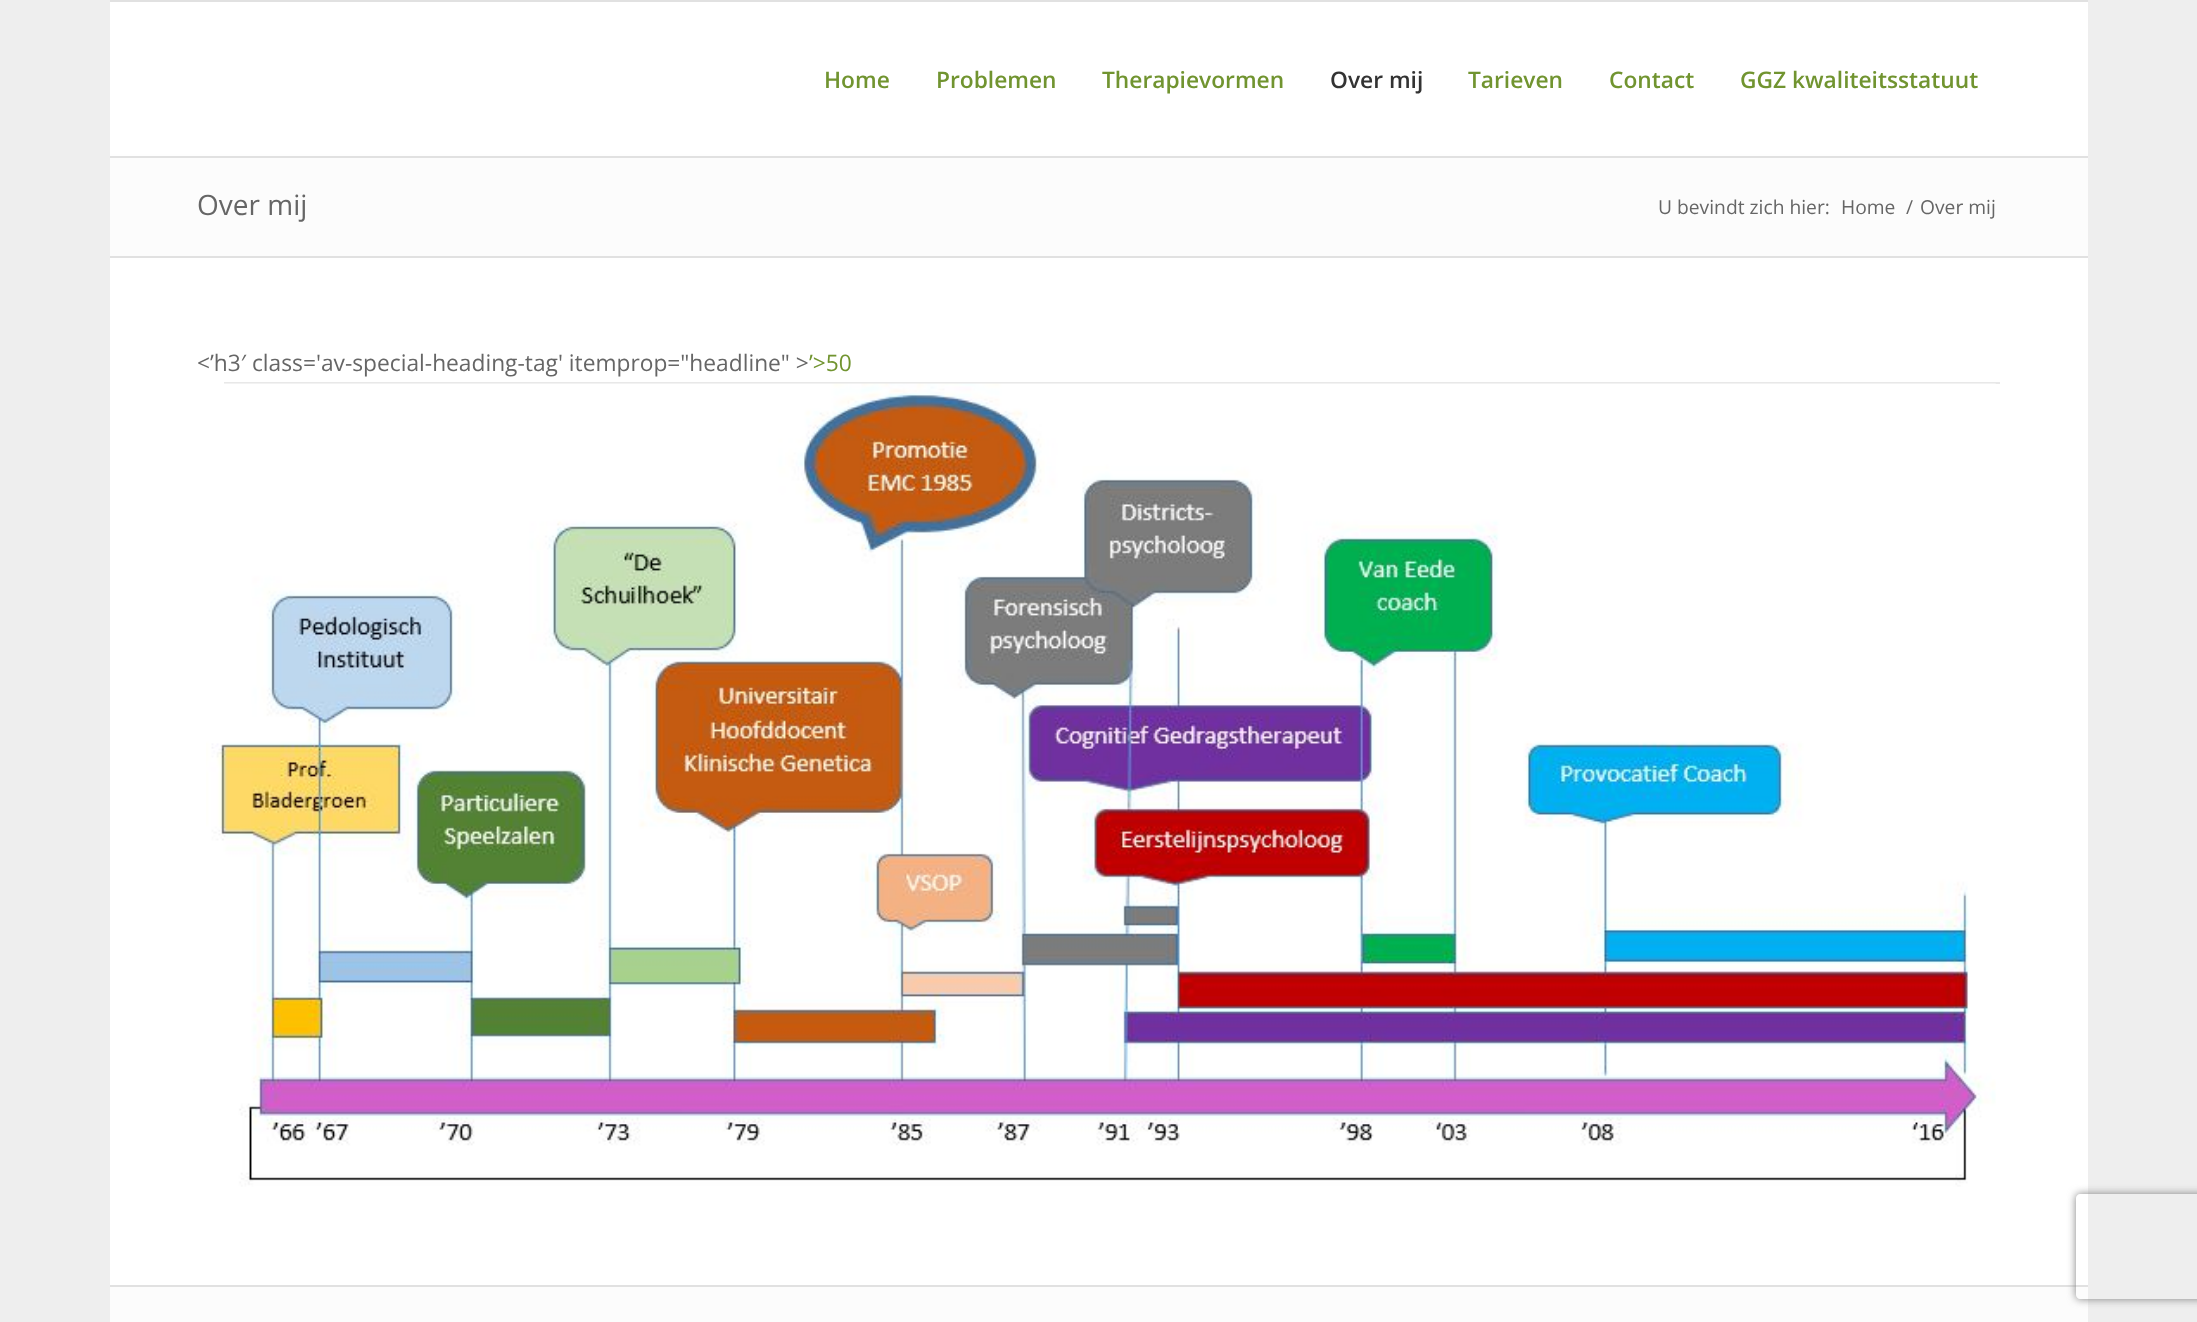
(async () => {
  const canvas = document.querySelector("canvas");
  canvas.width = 2197;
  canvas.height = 1322;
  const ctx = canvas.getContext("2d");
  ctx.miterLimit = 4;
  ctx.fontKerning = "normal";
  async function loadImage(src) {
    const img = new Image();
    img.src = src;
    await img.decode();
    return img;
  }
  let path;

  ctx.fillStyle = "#eeeeee";
  ctx.fillRect(0, 0, 2197, 1322);
  for (const [x, y, w, h, color] of [
    [110, 0, 1978, 2, "#e1e1e1"],
    [110, 156, 1978, 2, "#e1e1e1"],
    [110, 258, 1978, 1027, "#ffffff"],
    [110, 2, 1978, 152, "#ffffff"],
    [110, 158, 1978, 98, "#fcfcfc"],
    [110, 154, 1978, 2, "#fefefe"],
    [110, 256, 1978, 2, "#e1e1e1"],
    [224, 382, 1776, 2, "#e8e8e8"],
  ]) {
    ctx.fillStyle = color;
    ctx.fillRect(x, y, w, h);
  }
  ctx.drawImage(await loadImage("img/1.png"), 206, 383, 1790, 804);
  ctx.fillStyle = "#fcfcfc";
  ctx.fillRect(110, 1287, 1978, 35);
  ctx.fillStyle = "#e1e1e1";
  ctx.fillRect(110, 1285, 1978, 2);
  ctx.save();
  path = new Path2D("M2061 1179H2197V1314H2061ZM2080 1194H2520C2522 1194 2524 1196 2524 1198V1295C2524 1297 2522 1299 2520 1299H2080C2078 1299 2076 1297 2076 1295V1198C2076 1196 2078 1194 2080 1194Z");
  ctx.clip(path, "evenodd");
  ctx.fillStyle = "#808080";
  ctx.filter = "blur(4.5px)";
  ctx.beginPath();
  ctx.roundRect(2076, 1194, 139, 105, 4);
  ctx.fill();
  ctx.filter = "none";
  ctx.restore();
  ctx.font = "600 22.75px Open Sans";
  ctx.fillStyle = "#719430";
  for (const [text, x, y] of [
    ["Home", 824, 88],
    ["Problemen", 936, 88],
    ["Therapievormen", 1102, 88],
  ]) {
    ctx.fillText(text, x, y);
  }
  ctx.fillStyle = "#333333";
  ctx.fillText("Over mij", 1330, 88);
  ctx.fillStyle = "#719430";
  for (const [text, x, y] of [
    ["Tarieven", 1468, 88],
    ["Contact", 1609, 88],
    ["GGZ kwaliteitsstatuut", 1740, 88],
  ]) {
    ctx.fillText(text, x, y);
  }
  ctx.font = "28px Open Sans";
  ctx.fillStyle = "#666666";
  ctx.fillText("Over mij", 197, 215);
  ctx.font = "19.25px Open Sans";
  for (const [text, x, y] of [
    ["U bevindt zich hier:", 1658, 214],
    ["Home", 1841, 214],
    ["/", 1906, 214],
    ["Over mij", 1920, 214],
  ]) {
    ctx.fillText(text, x, y);
  }
  ctx.font = "22.75px Open Sans";
  ctx.fillText("<’h3′ class='av-special-heading-tag' itemprop=\"headline\" >", 197, 371);
  ctx.fillStyle = "#719430";
  ctx.fillText("’>50", 809, 371);
})();
